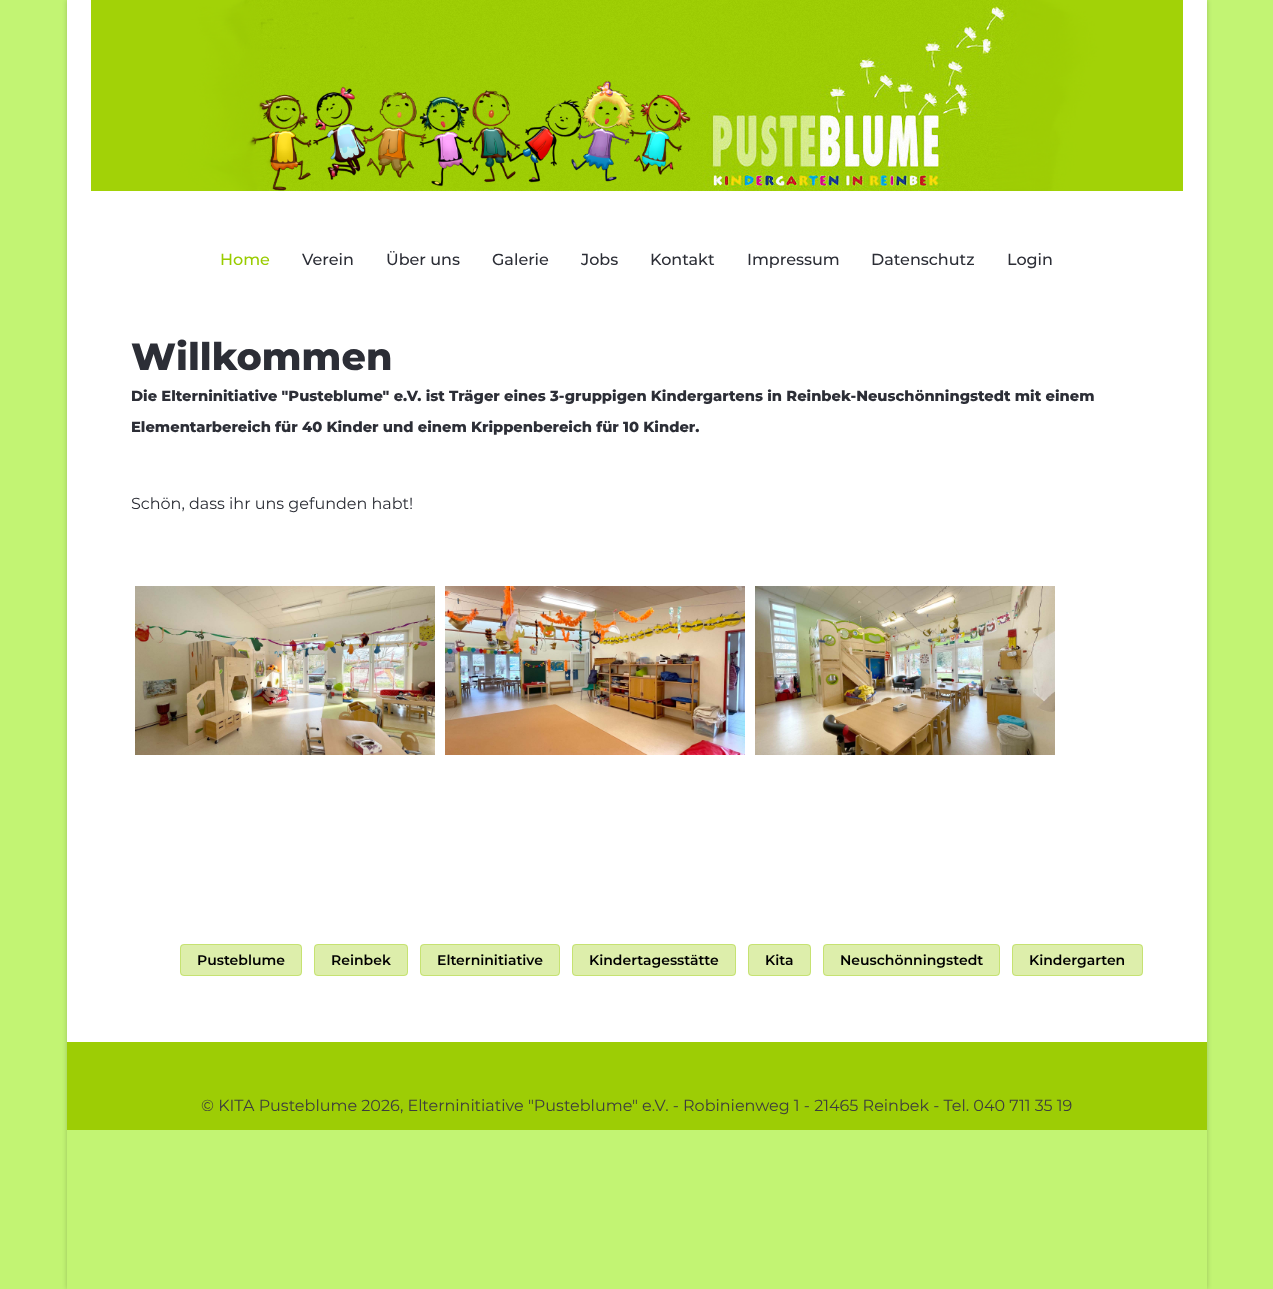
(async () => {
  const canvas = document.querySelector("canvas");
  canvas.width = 1273;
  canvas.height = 1289;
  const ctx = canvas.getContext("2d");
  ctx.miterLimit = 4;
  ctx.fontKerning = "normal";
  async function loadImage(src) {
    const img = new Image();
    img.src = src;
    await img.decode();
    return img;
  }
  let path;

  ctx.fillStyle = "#c2f473";
  ctx.fillRect(0, 0, 1273, 1289);
  ctx.save();
  path = new Path2D("M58 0H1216V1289H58ZM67 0H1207V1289H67Z");
  ctx.clip(path, "evenodd");
  ctx.fillStyle = "rgba(0, 0, 0, 0.2)";
  ctx.filter = "blur(2.5px)";
  ctx.beginPath();
  ctx.rect(67, 0, 1140, 1289);
  ctx.fill();
  ctx.filter = "none";
  ctx.restore();
  ctx.fillStyle = "#ffffff";
  ctx.fillRect(67, 0, 1140, 1042);
  ctx.drawImage(await loadImage("img/1.png"), 91, 0, 1092, 191);
  ctx.drawImage(await loadImage("img/2.png"), 135, 586, 300, 169);
  ctx.drawImage(await loadImage("img/3.png"), 445, 586, 300, 169);
  ctx.drawImage(await loadImage("img/4.png"), 755, 586, 300, 169);
  ctx.fillStyle = "#ddeeab";
  ctx.beginPath();
  ctx.roundRect(180, 944, 122, 32, 4);
  ctx.fill();
  ctx.beginPath();
  ctx.roundRect(180.5, 944.5, 121, 31, 3.5);
  ctx.strokeStyle = "rgba(153, 204, 0, 0.33)";
  ctx.stroke();
  ctx.beginPath();
  ctx.roundRect(314, 944, 94, 32, 4);
  ctx.fill();
  ctx.beginPath();
  ctx.roundRect(314.5, 944.5, 93, 31, 3.5);
  ctx.stroke();
  ctx.beginPath();
  ctx.roundRect(420, 944, 140, 32, 4);
  ctx.fill();
  ctx.beginPath();
  ctx.roundRect(420.5, 944.5, 139, 31, 3.5);
  ctx.stroke();
  ctx.beginPath();
  ctx.roundRect(572, 944, 164, 32, 4);
  ctx.fill();
  ctx.beginPath();
  ctx.roundRect(572.5, 944.5, 163, 31, 3.5);
  ctx.stroke();
  ctx.beginPath();
  ctx.roundRect(748, 944, 63, 32, 4);
  ctx.fill();
  ctx.beginPath();
  ctx.roundRect(748.5, 944.5, 62, 31, 3.5);
  ctx.stroke();
  ctx.beginPath();
  ctx.roundRect(823, 944, 177, 32, 4);
  ctx.fill();
  ctx.beginPath();
  ctx.roundRect(823.5, 944.5, 176, 31, 3.5);
  ctx.stroke();
  ctx.beginPath();
  ctx.roundRect(1012, 944, 131, 32, 4);
  ctx.fill();
  ctx.beginPath();
  ctx.roundRect(1012.5, 944.5, 130, 31, 3.5);
  ctx.stroke();
  ctx.fillStyle = "#9dcd05";
  ctx.fillRect(67, 1042, 1140, 88);
  ctx.font = "500 16px Montserrat";
  ctx.fillStyle = "#99cc00";
  ctx.fillText("Home", 220, 265);
  ctx.fillStyle = "#2c2e36";
  for (const [text, x, y] of [
    ["Verein", 302, 265],
    ["Über uns", 386, 265],
    ["Galerie", 492, 265],
    ["Jobs", 581, 265],
    ["Kontakt", 650, 265],
    ["Impressum", 747, 265],
    ["Datenschutz", 871, 265],
    ["Login", 1007, 265],
  ]) {
    ctx.fillText(text, x, y);
  }
  ctx.font = "800 38px Montserrat";
  ctx.fillText("Willkommen", 131, 370);
  ctx.font = "800 14.67px Montserrat";
  ctx.fillText("Die Elterninitiative \"Pusteblume\" e.V. ist Träger eines 3-gruppigen Kindergartens in Reinbek-Neuschönningstedt mit einem", 131, 401);
  ctx.fillText("Elementarbereich für 40 Kinder und einem Krippenbereich für 10 Kinder.", 131, 432);
  ctx.font = "16px Montserrat";
  ctx.fillText("Schön, dass ihr uns gefunden habt!", 131, 509);
  ctx.font = "600 14px Montserrat";
  ctx.fillStyle = "#000000";
  for (const [text, x, y] of [
    ["Pusteblume", 197, 965],
    ["Reinbek", 331, 965],
    ["Elterninitiative", 437, 965],
    ["Kindertagesstätte", 589, 965],
    ["Kita", 765, 965],
    ["Neuschönningstedt", 840, 965],
    ["Kindergarten", 1029, 965],
  ]) {
    ctx.fillText(text, x, y);
  }
  ctx.font = "16px Montserrat";
  ctx.fillStyle = "#3d3d3d";
  ctx.fillText("© KITA Pusteblume 2026, Elterninitiative \"Pusteblume\" e.V. - Robinienweg 1 - 21465 Reinbek - Tel. 040 711 35 19", 201, 1111);
})();
